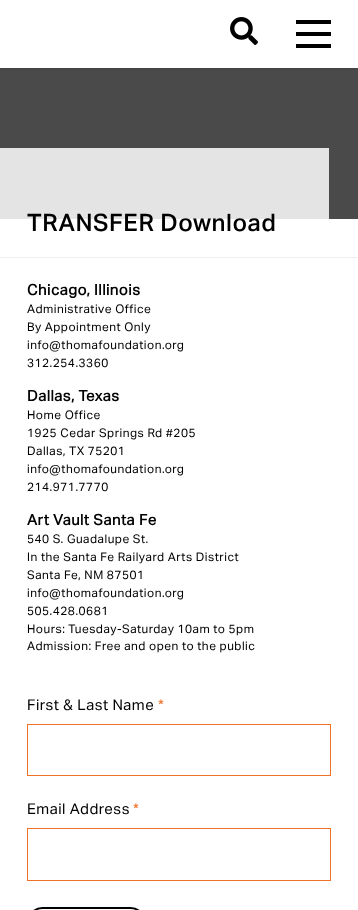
(async () => {
  const canvas = document.querySelector("canvas");
  canvas.width = 358;
  canvas.height = 910;
  const ctx = canvas.getContext("2d");
  ctx.miterLimit = 4;
  ctx.fontKerning = "normal";
  async function loadImage(src) {
    const img = new Image();
    img.src = src;
    await img.decode();
    return img;
  }

  ctx.fillStyle = "#ffffff";
  ctx.fillRect(0, 0, 358, 910);
  ctx.fillStyle = "#4a4a4a";
  ctx.fillRect(0, 68, 358, 151);
  ctx.fillStyle = "rgba(0, 0, 0, 0.1)";
  ctx.filter = "blur(1px)";
  ctx.beginPath();
  ctx.rect(0, 1, 358, 68);
  ctx.fill();
  ctx.filter = "none";
  ctx.fillStyle = "#ffffff";
  ctx.fillRect(0, 0, 358, 68);
  ctx.drawImage(await loadImage("img/1.png"), 230, 17, 28, 28);
  for (const [x, y, w, h, color] of [
    [296, 20, 35, 4, "#000000"],
    [296, 32, 35, 4, "#000000"],
    [296, 44, 35, 4, "#000000"],
    [0, 148, 329, 71, "#e4e4e4"],
    [0, 257, 358, 1, "#eeeeee"],
  ]) {
    ctx.fillStyle = color;
    ctx.fillRect(x, y, w, h);
  }
  ctx.strokeStyle = "#f26f25";
  ctx.strokeRect(27.5, 724.5, 303, 51);
  ctx.strokeRect(27.5, 828.5, 303, 52);
  ctx.beginPath();
  ctx.roundRect(28, 908, 117, 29, 24.5);
  ctx.strokeStyle = "#000000";
  ctx.lineWidth = 2;
  ctx.stroke();
  ctx.letterSpacing = "0.5px";
  ctx.font = "500 24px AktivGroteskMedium";
  ctx.fillStyle = "#000000";
  ctx.fillText("TRANSFER Download", 27, 231);
  ctx.font = "bold 14.9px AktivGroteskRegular";
  ctx.fillText("Chicago, Illinois", 27, 295);
  ctx.font = "11.9px AktivGroteskRegular";
  for (const [text, x, y] of [
    ["Administrative Office", 27, 313],
    ["By Appointment Only", 27, 331],
    ["info@thomafoundation.org", 27, 349],
    ["312.254.3360", 27, 367],
  ]) {
    ctx.fillText(text, x, y);
  }
  ctx.font = "bold 14.9px AktivGroteskRegular";
  ctx.fillText("Dallas, Texas", 27, 401);
  ctx.font = "11.9px AktivGroteskRegular";
  for (const [text, x, y] of [
    ["Home Office", 27, 419],
    ["1925 Cedar Springs Rd #205", 27, 437],
    ["Dallas, TX 75201", 27, 455],
    ["info@thomafoundation.org", 27, 473],
    ["214.971.7770", 27, 491],
  ]) {
    ctx.fillText(text, x, y);
  }
  ctx.font = "bold 14.9px AktivGroteskRegular";
  ctx.fillText("Art Vault Santa Fe", 27, 525);
  ctx.font = "11.9px AktivGroteskRegular";
  for (const [text, x, y] of [
    ["540 S. Guadalupe St.", 27, 543],
    ["In the Santa Fe Railyard Arts District", 27, 561],
    ["Santa Fe, NM 87501", 27, 579],
    ["info@thomafoundation.org", 27, 597],
    ["505.428.0681", 27, 615],
    ["Hours: Tuesday-Saturday 10am to 5pm", 27, 633],
    ["Admission: Free and open to the public", 27, 650],
  ]) {
    ctx.fillText(text, x, y);
  }
  ctx.font = "14.9px AktivGroteskRegular";
  ctx.fillText("First & Last Name", 27, 710);
  ctx.fillStyle = "#f26f25";
  ctx.fillText("*", 158, 710);
  ctx.fillStyle = "#000000";
  ctx.fillText("Email Address", 27, 814);
  ctx.fillStyle = "#f26f25";
  ctx.fillText("*", 133, 814);
})();
